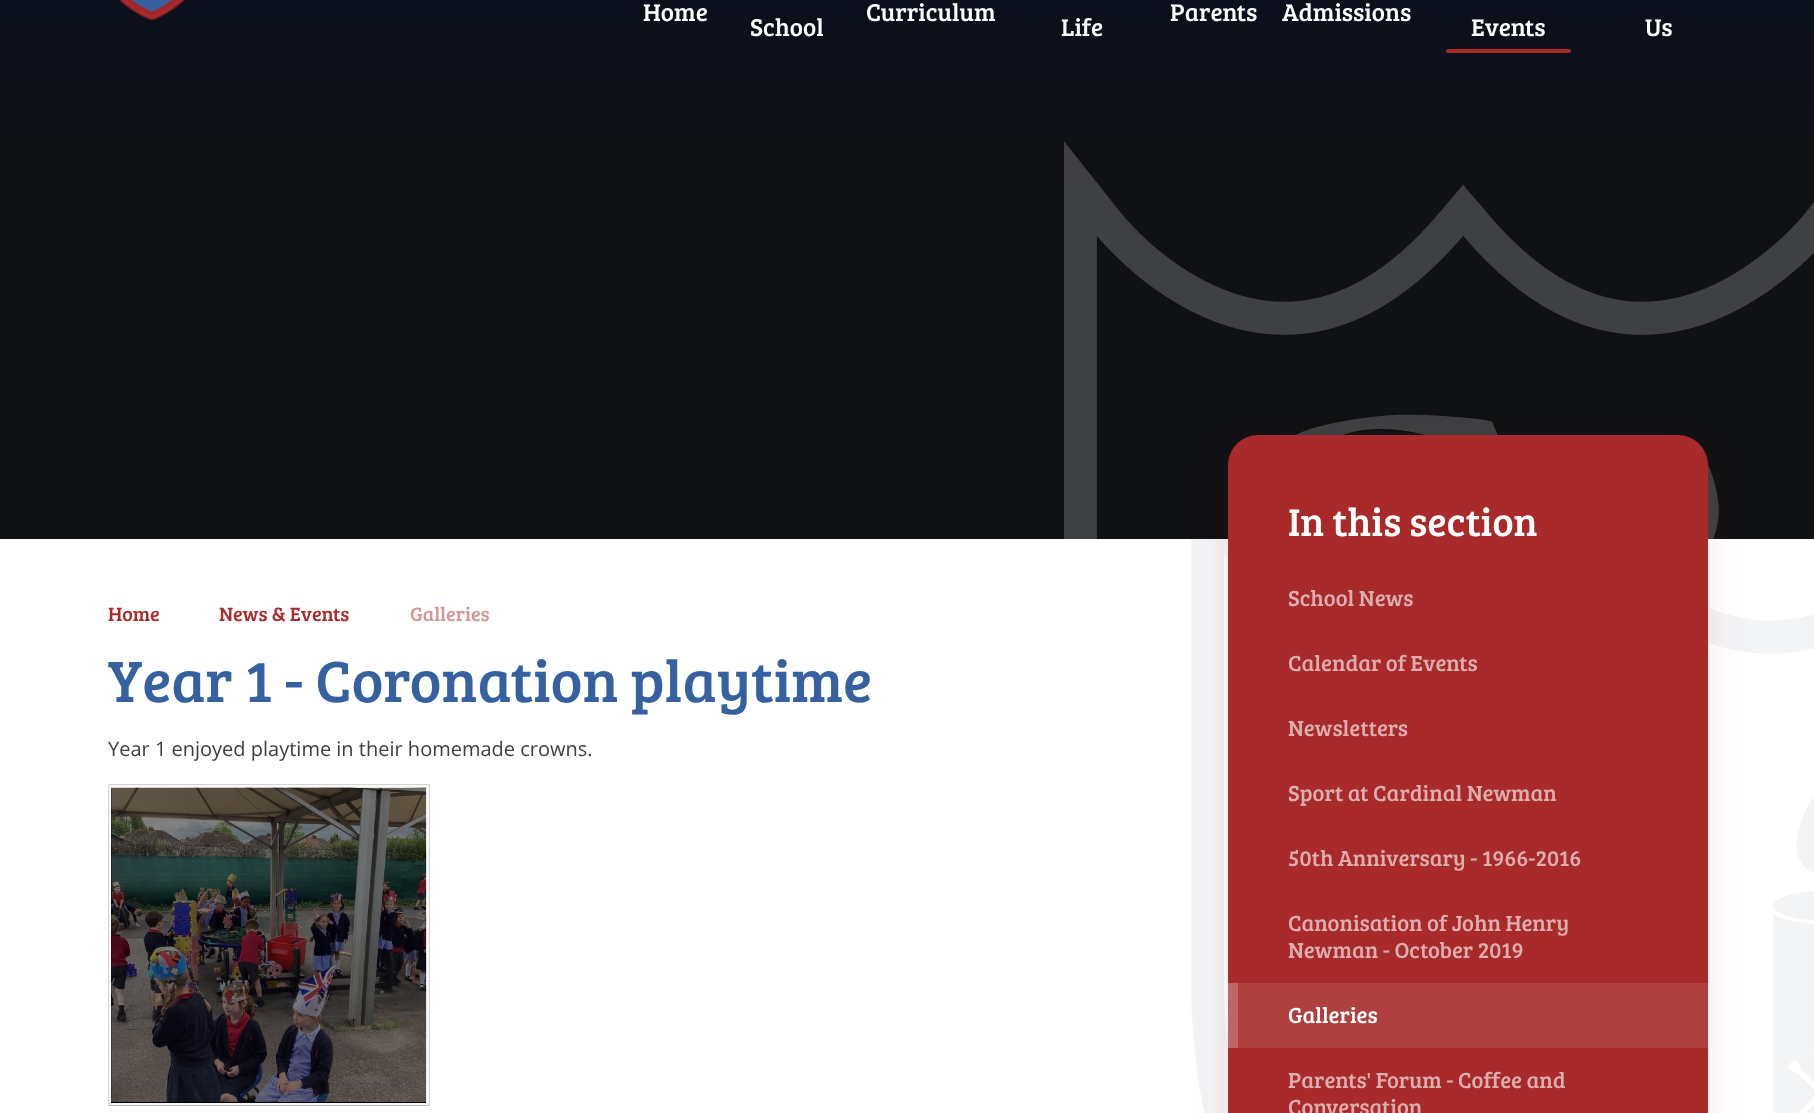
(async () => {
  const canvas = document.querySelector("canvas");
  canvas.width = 1814;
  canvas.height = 1113;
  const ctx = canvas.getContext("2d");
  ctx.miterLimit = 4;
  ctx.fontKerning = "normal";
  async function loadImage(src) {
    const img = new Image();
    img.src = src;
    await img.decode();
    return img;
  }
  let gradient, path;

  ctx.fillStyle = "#ffffff";
  ctx.fillRect(0, 0, 1814, 1113);
  gradient = ctx.createLinearGradient(908, -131, 908, 595);
  gradient.addColorStop(0, "#080f23");
  gradient.addColorStop(0.45, "#101113");
  gradient.addColorStop(1, "#101113");
  ctx.fillStyle = gradient;
  ctx.fillRect(0, 0, 1814, 539);
  ctx.drawImage(await loadImage("img/1.png"), 1064, 141, 750, 398);
  ctx.drawImage(await loadImage("img/2.png"), 119, 0, 67, 20);
  ctx.fillStyle = "#a82a2a";
  ctx.beginPath();
  ctx.roundRect(1446, 49, 125, 4, 2);
  ctx.fill();
  ctx.fillStyle = "#f8f8f8";
  ctx.fillRect(108, 784, 322, 322);
  ctx.fillStyle = "#d3d3d3";
  path = new Path2D("M108 784H430L429 785H109Z");
  ctx.fill(path);
  ctx.fillStyle = "rgba(0, 0, 0, 0.15)";
  path = new Path2D("M430 784V1106L429 1105V785Z");
  ctx.fill(path);
  ctx.fillStyle = "rgba(0, 0, 0, 0.25)";
  path = new Path2D("M430 1106H108L109 1105H429Z");
  ctx.fill(path);
  ctx.fillStyle = "rgba(0, 0, 0, 0.15)";
  path = new Path2D("M108 1106V784L109 785V1105Z");
  ctx.fill(path);
  ctx.fillStyle = "#000000";
  ctx.fillRect(111, 788, 315, 315);
  ctx.drawImage(await loadImage("img/3.png"), 111, 787, 316, 315);
  ctx.drawImage(await loadImage("img/4.png"), 1191, 539, 623, 574);
  ctx.fillStyle = "rgba(168, 42, 42, 0.1)";
  ctx.filter = "blur(20px)";
  ctx.beginPath();
  ctx.roundRect(1228, 455, 480, 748, 30);
  ctx.fill();
  ctx.filter = "none";
  ctx.fillStyle = "#a82a2a";
  ctx.beginPath();
  ctx.roundRect(1228, 435, 480, 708, 30);
  ctx.fill();
  ctx.fillStyle = "rgba(255, 255, 255, 0.1)";
  ctx.fillRect(1238, 983, 470, 65);
  ctx.fillStyle = "#c06666";
  ctx.fillRect(1228, 983, 10, 65);
  ctx.font = "25px Bree Serif";
  ctx.fillStyle = "#ffffff";
  for (const [text, x, y] of [
    ["Home", 643, 21],
    ["Curriculum", 866, 21],
    ["Parents", 1170, 21],
    ["Admissions", 1282, 21],
    ["School", 750, 36],
    ["Life", 1061, 36],
    ["Events", 1471, 36],
    ["Us", 1645, 36],
  ]) {
    ctx.fillText(text, x, y);
  }
  ctx.font = "20px Bree Serif";
  ctx.fillStyle = "#a82a2a";
  ctx.fillText("Home", 108, 621);
  ctx.fillText("News & Events", 219, 621);
  ctx.fillStyle = "#d49595";
  ctx.fillText("Galleries", 410, 621);
  ctx.font = "60px Bree Serif";
  ctx.fillStyle = "#3661a1";
  ctx.fillText("Year 1 - Coronation playtime", 108, 702);
  ctx.font = "20px Open Sans";
  ctx.fillStyle = "#3e3e3e";
  ctx.fillText("Year 1 enjoyed playtime in their homemade crowns.", 108, 756);
  ctx.font = "40px Bree Serif";
  ctx.fillStyle = "#ffffff";
  ctx.fillText("In this section", 1288, 536);
  ctx.font = "22.5px Bree Serif";
  ctx.fillStyle = "#deaeae";
  for (const [text, x, y] of [
    ["School News", 1288, 606],
    ["Calendar of Events", 1288, 671],
    ["Newsletters", 1288, 736],
    ["Sport at Cardinal Newman", 1288, 801],
    ["50th Anniversary - 1966-2016", 1288, 866],
    ["Canonisation of John Henry", 1288, 931],
    ["Newman - October 2019", 1288, 958],
  ]) {
    ctx.fillText(text, x, y);
  }
  ctx.fillStyle = "#ffffff";
  ctx.fillText("Galleries", 1288, 1023);
  ctx.fillStyle = "#deaeae";
  ctx.fillText("Parents' Forum - Coffee and", 1288, 1088);
  ctx.fillText("Conversation", 1288, 1115);
})();
